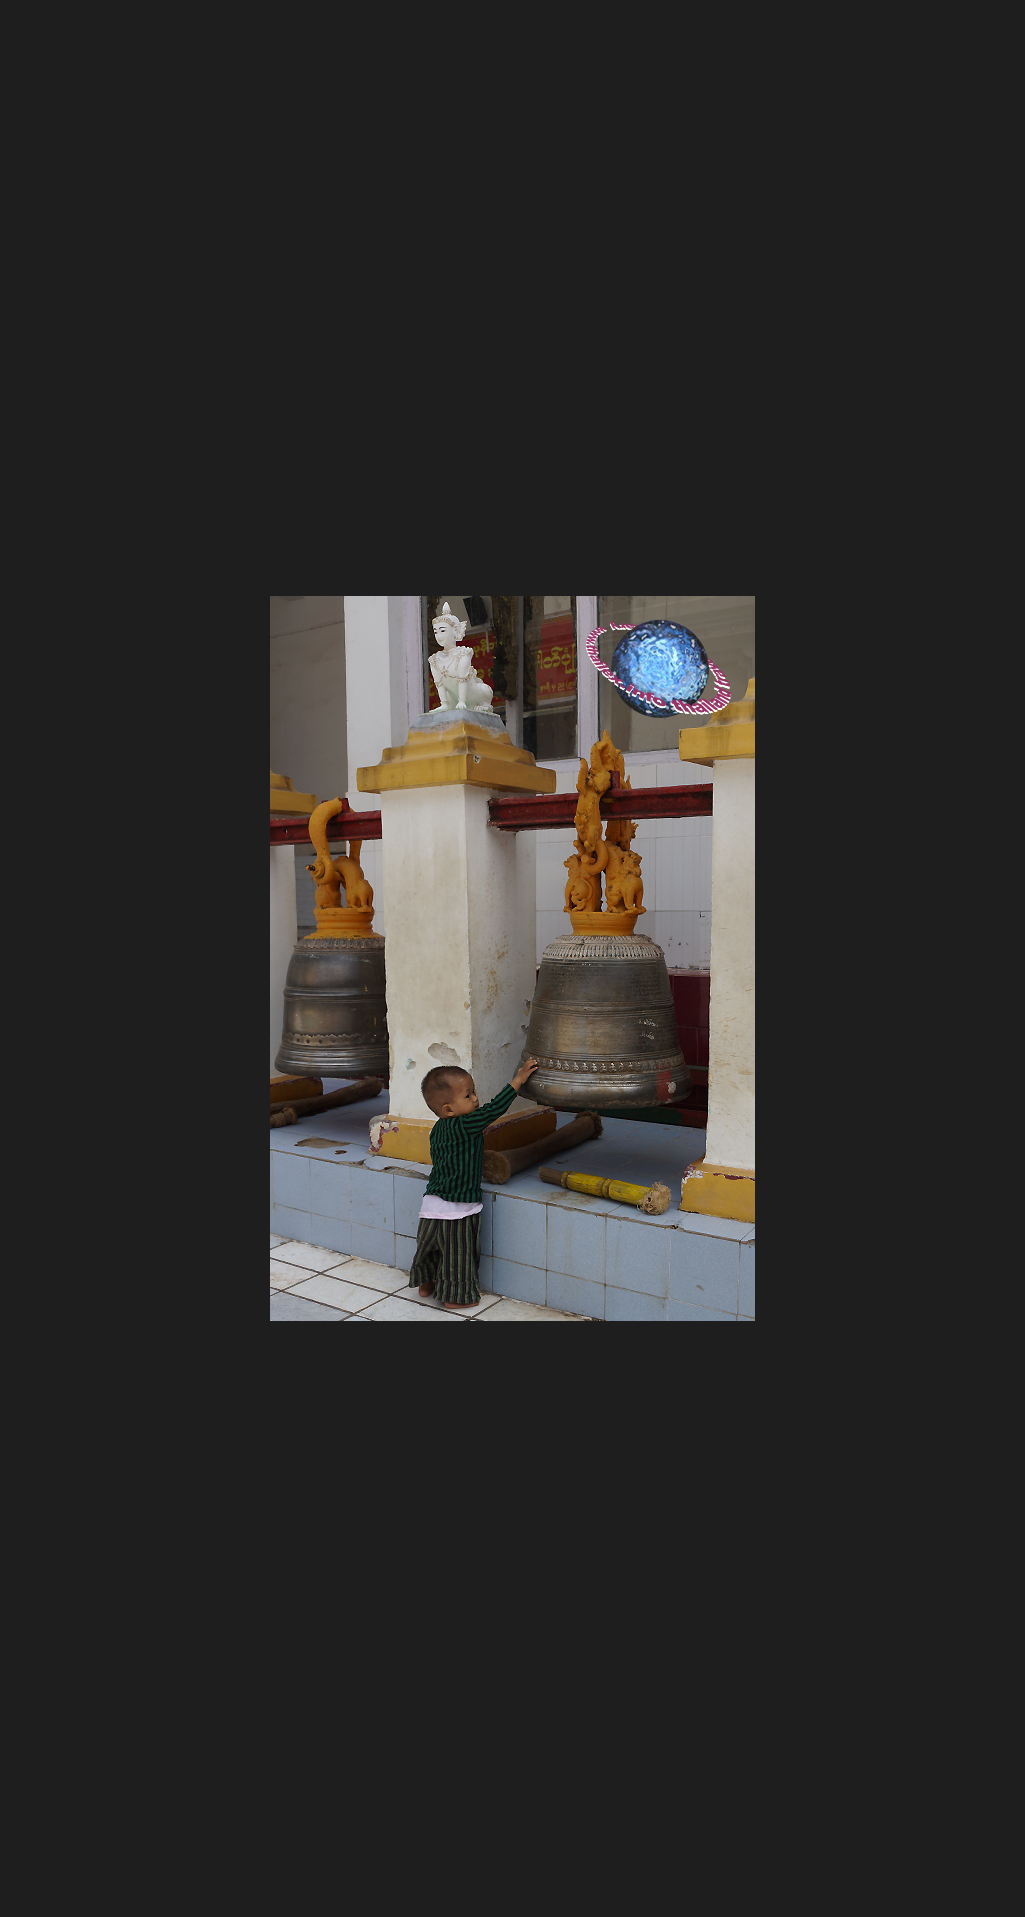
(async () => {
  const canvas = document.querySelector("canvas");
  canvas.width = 1025;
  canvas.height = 1917;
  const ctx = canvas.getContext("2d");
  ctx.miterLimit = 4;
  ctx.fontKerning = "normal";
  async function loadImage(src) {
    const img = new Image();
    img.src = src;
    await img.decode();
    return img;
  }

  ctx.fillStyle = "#1e1e1e";
  ctx.fillRect(0, 0, 1025, 1917);
  ctx.drawImage(await loadImage("img/1.png"), 270, 596, 485, 725);
})();
